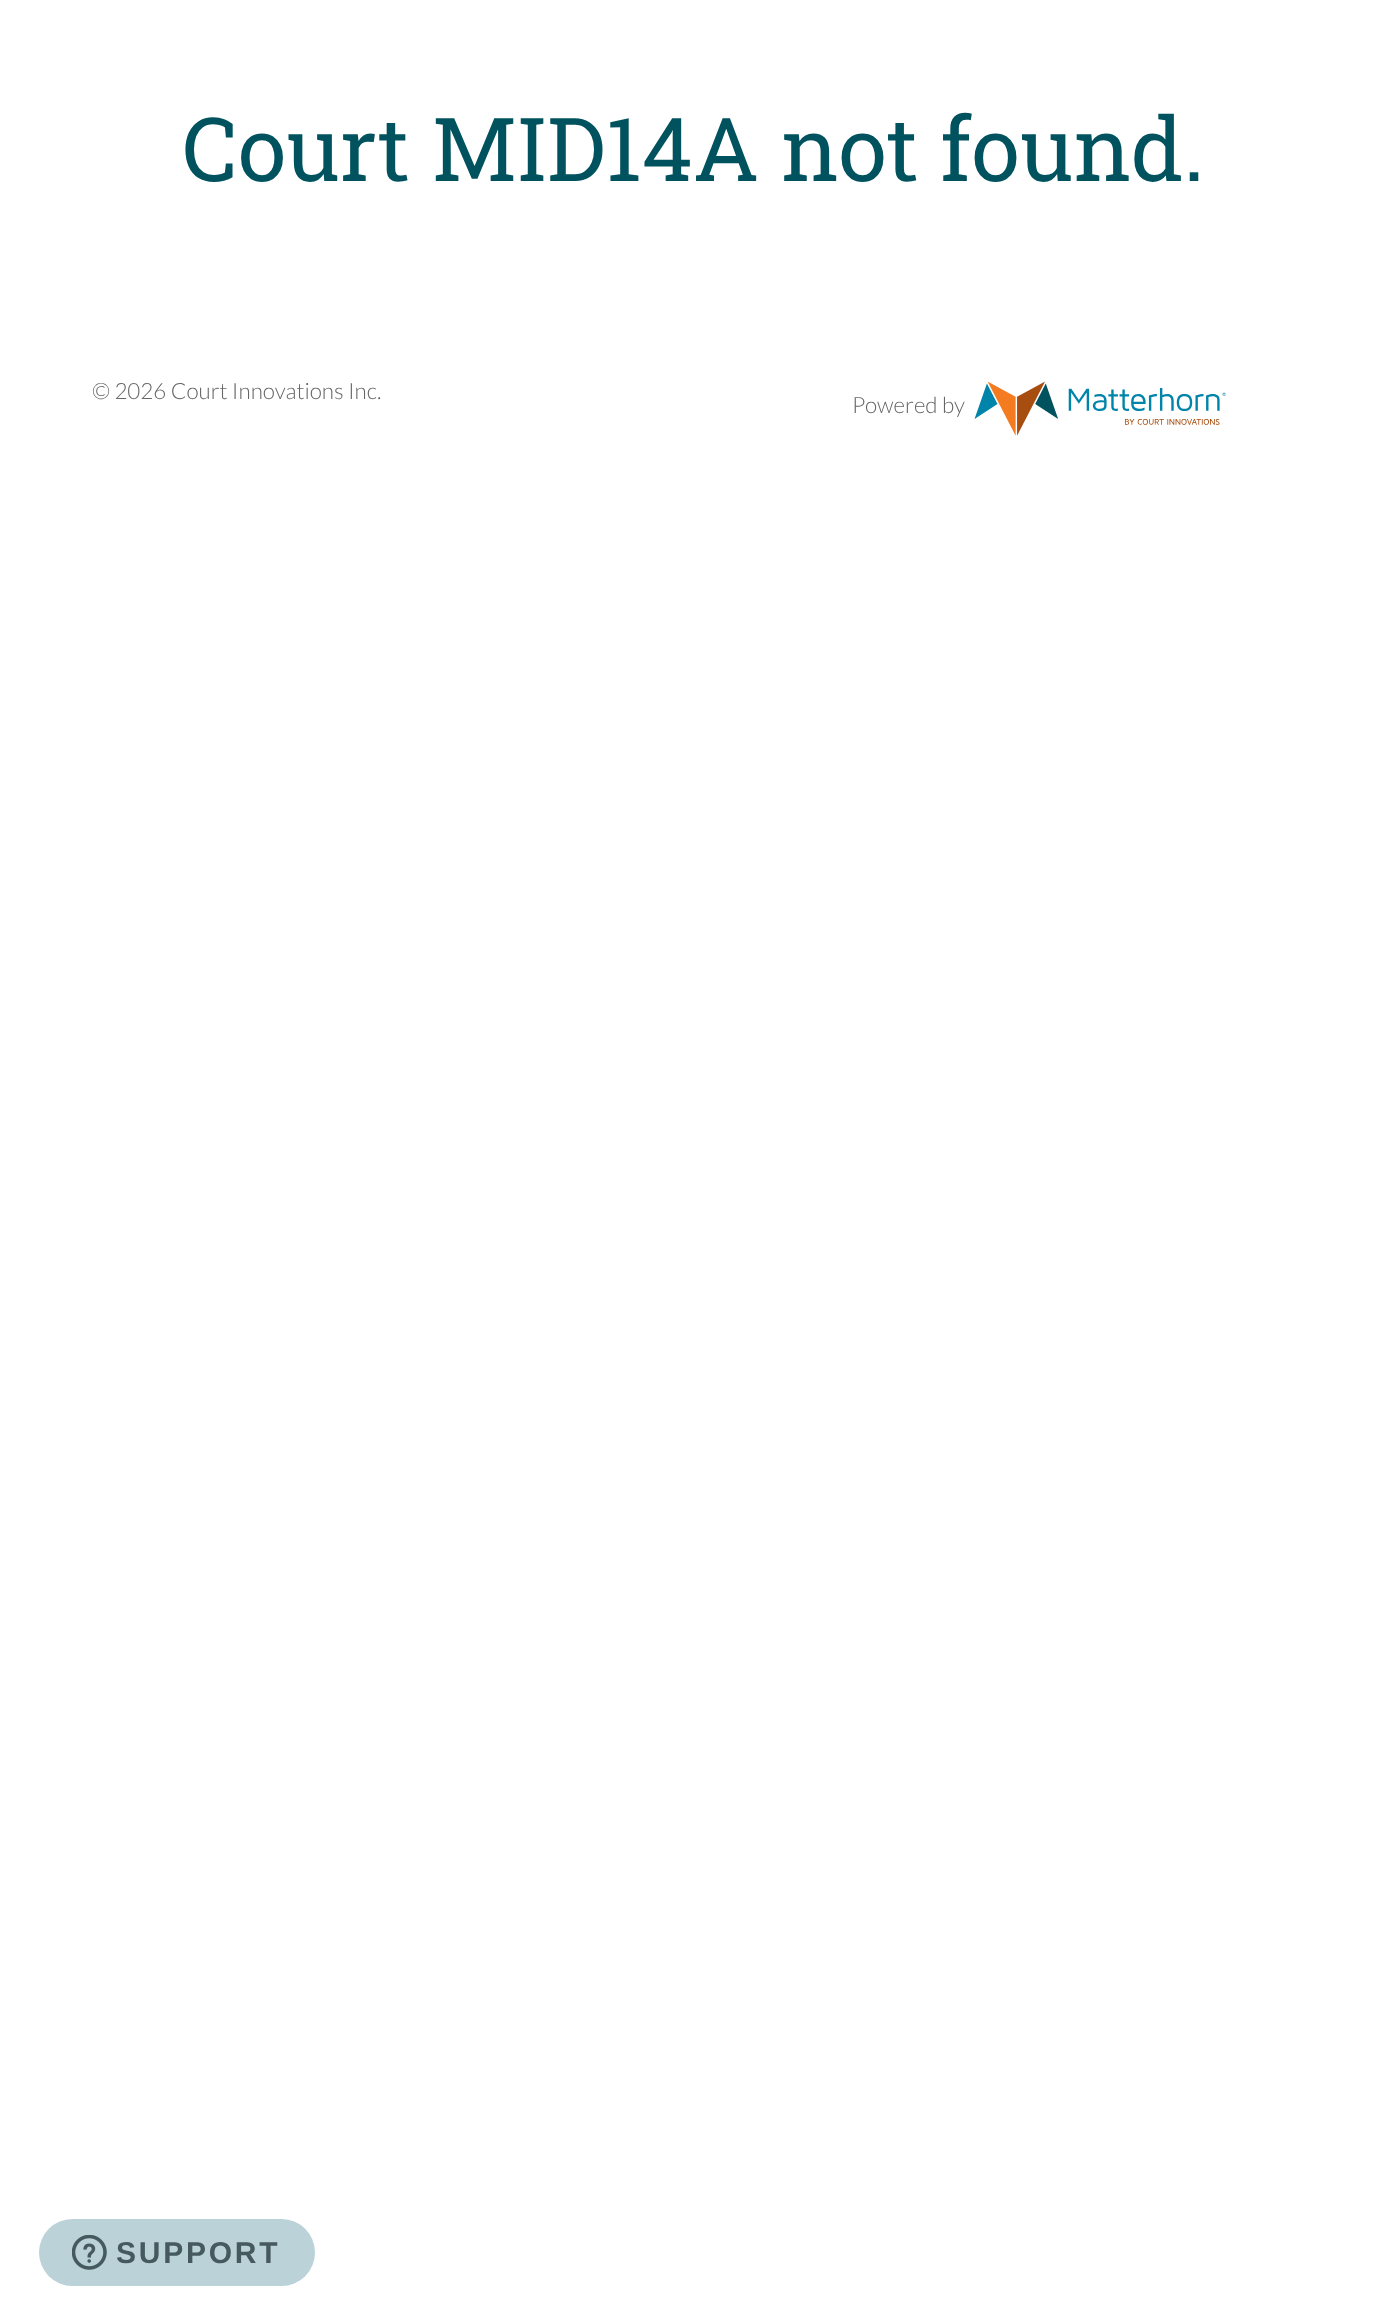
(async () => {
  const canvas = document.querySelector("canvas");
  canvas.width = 1386;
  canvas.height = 2314;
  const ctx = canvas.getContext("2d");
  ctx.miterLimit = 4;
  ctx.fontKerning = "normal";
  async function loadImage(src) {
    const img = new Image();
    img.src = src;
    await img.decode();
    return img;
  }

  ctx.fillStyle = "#ffffff";
  ctx.fillRect(0, 0, 1386, 2314);
  ctx.drawImage(await loadImage("img/1.png"), 974, 381, 252, 55);
  ctx.fillStyle = "#bad2d8";
  ctx.beginPath();
  ctx.roundRect(39, 2219, 276, 67, 33.5);
  ctx.fill();
  ctx.drawImage(await loadImage("img/2.png"), 72, 2235, 35, 35);
  ctx.font = "88.4px Roboto Slab";
  ctx.fillStyle = "#00535e";
  ctx.fillText("Court MID14A not found.", 182, 181);
  ctx.font = "300 22.4px Lato";
  ctx.fillStyle = "#666666";
  ctx.fillText("© 2026 Court Innovations Inc.", 92, 399);
  ctx.fillText("Powered by", 852, 413);
  ctx.letterSpacing = "2.75px";
  ctx.font = "bold 30px Liberation Sans";
  ctx.fillStyle = "#45595e";
  ctx.fillText("SUPPORT", 116, 2263);
})();
